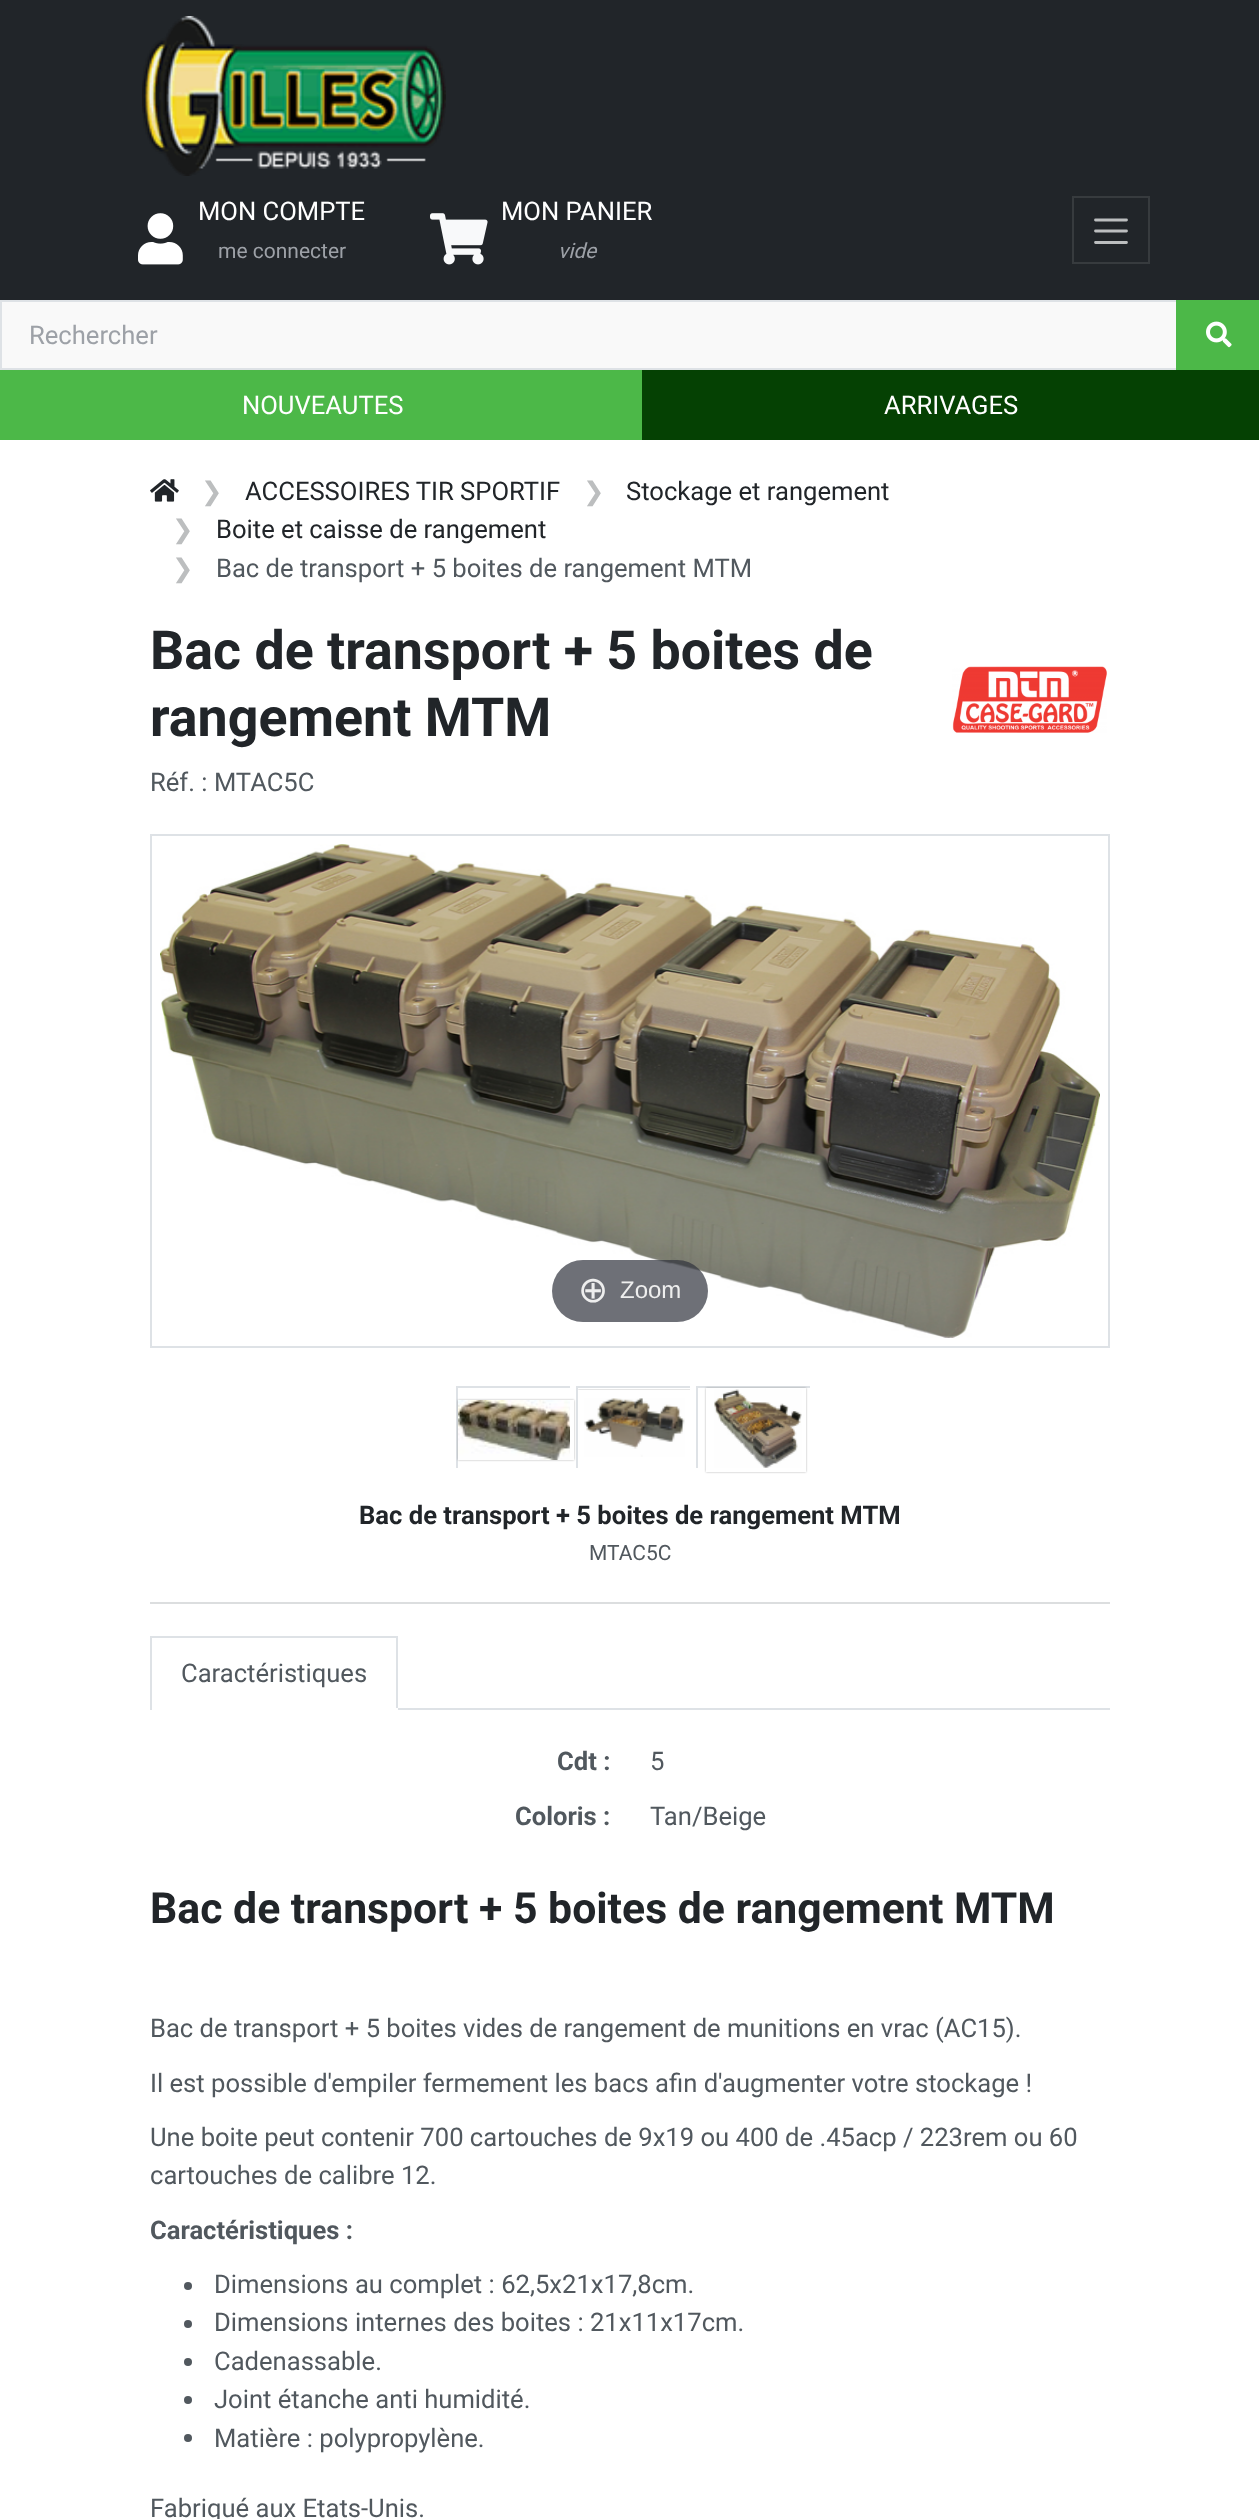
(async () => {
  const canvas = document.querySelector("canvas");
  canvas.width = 1259;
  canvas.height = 2519;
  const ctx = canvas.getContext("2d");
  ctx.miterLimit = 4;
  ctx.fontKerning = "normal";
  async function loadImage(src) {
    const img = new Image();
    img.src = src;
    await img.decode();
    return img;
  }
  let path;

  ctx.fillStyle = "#ffffff";
  ctx.fillRect(0, 0, 1259, 2519);
  ctx.fillStyle = "#212529";
  ctx.fillRect(0, 0, 1259, 300);
  ctx.drawImage(await loadImage("img/1.png"), 142, 16, 304, 160);
  ctx.drawImage(await loadImage("img/2.png"), 138, 213, 45, 52);
  ctx.drawImage(await loadImage("img/3.png"), 430, 213, 58, 52);
  ctx.strokeStyle = "#373b3e";
  ctx.lineWidth = 2;
  ctx.strokeRect(1073, 197, 76, 66);
  path = new Path2D("M1095.5 220H1126.5M1095.5 231H1126.5M1095.5 242.5H1126.5");
  ctx.strokeStyle = "#bcbebf";
  ctx.lineWidth = 2.8;
  ctx.lineCap = "round";
  ctx.stroke(path);
  ctx.fillStyle = "#f9f9f9";
  ctx.beginPath();
  ctx.rect(1, 301, 1176, 68);
  ctx.fill();
  ctx.strokeStyle = "#dee2e6";
  ctx.lineWidth = 2;
  ctx.stroke();
  ctx.fillStyle = "#4cb848";
  ctx.fillRect(1176, 300, 83, 70);
  ctx.drawImage(await loadImage("img/4.png"), 1206, 321, 26, 27);
  ctx.fillRect(0, 370, 642, 70);
  ctx.fillStyle = "#054103";
  ctx.fillRect(642, 370, 617, 70);
  ctx.drawImage(await loadImage("img/5.png"), 150, 479, 29, 23);
  ctx.drawImage(await loadImage("img/6.png"), 952, 666, 155, 67);
  ctx.strokeRect(151, 835, 958, 512);
  ctx.drawImage(await loadImage("img/7.png"), 160, 844, 940, 494);
  ctx.fillStyle = "rgba(49, 51, 61, 0.7)";
  ctx.beginPath();
  ctx.roundRect(552, 1260, 156, 62, 31);
  ctx.fill();
  ctx.save();
  ctx.beginPath();
  ctx.rect(450, 1380, 120, 88);
  ctx.clip();
  ctx.strokeRect(457, 1387, 118, 86);
  ctx.restore();
  ctx.save();
  path = new Path2D("M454 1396H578V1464H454ZM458 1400H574V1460H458Z");
  ctx.clip(path, "evenodd");
  ctx.fillStyle = "rgba(0, 0, 0, 0.3)";
  ctx.filter = "blur(1px)";
  ctx.beginPath();
  ctx.rect(458, 1400, 116, 60);
  ctx.fill();
  ctx.filter = "none";
  ctx.restore();
  ctx.drawImage(await loadImage("img/8.png"), 458, 1400, 112, 60);
  ctx.save();
  ctx.beginPath();
  ctx.rect(570, 1380, 120, 88);
  ctx.clip();
  ctx.strokeRect(577, 1387, 118, 86);
  ctx.restore();
  ctx.save();
  ctx.beginPath();
  ctx.rect(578, 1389, 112, 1);
  ctx.clip();
  ctx.fillStyle = "rgba(0, 0, 0, 0.3)";
  ctx.filter = "blur(1px)";
  ctx.beginPath();
  ctx.rect(578, 1390, 116, 80);
  ctx.fill();
  ctx.filter = "none";
  ctx.restore();
  ctx.drawImage(await loadImage("img/9.png"), 584, 1398, 101, 59);
  ctx.save();
  ctx.beginPath();
  ctx.rect(690, 1380, 120, 88);
  ctx.clip();
  ctx.strokeRect(697, 1387, 118, 86);
  ctx.restore();
  ctx.save();
  path = new Path2D("M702 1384H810V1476H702ZM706 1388H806V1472H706Z");
  ctx.clip(path, "evenodd");
  ctx.fillStyle = "rgba(0, 0, 0, 0.3)";
  ctx.filter = "blur(1px)";
  ctx.beginPath();
  ctx.rect(706, 1388, 100, 84);
  ctx.fill();
  ctx.filter = "none";
  ctx.restore();
  ctx.drawImage(await loadImage("img/10.png"), 714, 1389, 88, 79);
  for (const [x, y, w, h, color] of [
    [150, 1602, 960, 2, "#dcdedf"],
    [398, 1708, 712, 2, "#dee2e6"],
    [150, 1636, 248, 2, "#dee2e6"],
    [396, 1636, 2, 74, "#dee2e6"],
    [396, 1708, 2, 2, "#ffffff"],
    [150, 1636, 2, 74, "#dee2e6"],
  ]) {
    ctx.fillStyle = color;
    ctx.fillRect(x, y, w, h);
  }
  ctx.fillStyle = "#51585e";
  ctx.beginPath();
  ctx.arc(188, 2286, 4, 0, Math.PI * 2);
  ctx.fill();
  ctx.beginPath();
  ctx.arc(188, 2324, 4, 0, Math.PI * 2);
  ctx.fill();
  ctx.beginPath();
  ctx.arc(188, 2362, 4, 0, Math.PI * 2);
  ctx.fill();
  ctx.beginPath();
  ctx.arc(188, 2400, 4, 0, Math.PI * 2);
  ctx.fill();
  ctx.beginPath();
  ctx.arc(188, 2438, 4, 0, Math.PI * 2);
  ctx.fill();
  ctx.font = "25.6px Roboto";
  ctx.fillStyle = "#ffffff";
  ctx.fillText("MON COMPTE", 198, 220);
  ctx.font = "21px Roboto";
  ctx.fillStyle = "#9da1a7";
  ctx.fillText("me connecter", 218, 258);
  ctx.font = "25.6px Roboto";
  ctx.fillStyle = "#ffffff";
  ctx.fillText("MON PANIER", 501, 220);
  ctx.font = "italic 21px Roboto";
  ctx.fillStyle = "#9da1a7";
  ctx.fillText("vide", 558, 258);
  ctx.font = "25.6px Roboto";
  ctx.fillText("Rechercher", 29, 344);
  ctx.fillStyle = "#ffffff";
  ctx.fillText("NOUVEAUTES", 242, 414);
  ctx.fillText("ARRIVAGES", 884, 414);
  ctx.font = "25.6px DejaVu Sans";
  ctx.fillStyle = "#bcbebf";
  ctx.fillText("❯", 201, 500);
  ctx.font = "25.6px Roboto";
  ctx.fillStyle = "#212529";
  ctx.fillText("ACCESSOIRES TIR SPORTIF", 245, 500);
  ctx.font = "25.6px DejaVu Sans";
  ctx.fillStyle = "#bcbebf";
  ctx.fillText("❯", 583, 500);
  ctx.font = "25.6px Roboto";
  ctx.fillStyle = "#212529";
  ctx.fillText("Stockage et rangement", 626, 500);
  ctx.font = "25.6px DejaVu Sans";
  ctx.fillStyle = "#bcbebf";
  ctx.fillText("❯", 172, 538);
  ctx.font = "25.6px Roboto";
  ctx.fillStyle = "#212529";
  ctx.fillText("Boite et caisse de rangement", 216, 538);
  ctx.font = "25.6px DejaVu Sans";
  ctx.fillStyle = "#bcbebf";
  ctx.fillText("❯", 172, 577);
  ctx.font = "25.6px Roboto";
  ctx.fillStyle = "#51585e";
  ctx.fillText("Bac de transport + 5 boites de rangement MTM", 216, 577);
  ctx.font = "bold 53.75px Roboto";
  ctx.fillStyle = "#212529";
  ctx.fillText("Bac de transport + 5 boites de", 150, 669);
  ctx.fillText("rangement MTM", 150, 736);
  ctx.font = "25.6px Roboto";
  ctx.fillStyle = "#51585e";
  ctx.fillText("Réf. : MTAC5C", 150, 791);
  ctx.font = "36px DejaVu Sans";
  ctx.fillStyle = "#eeeeee";
  ctx.fillText("⊕", 578, 1302);
  ctx.font = "24px Liberation Sans";
  ctx.fillText("Zoom", 620, 1298);
  ctx.font = "bold 25.6px Roboto";
  ctx.fillStyle = "#212529";
  ctx.fillText("Bac de transport + 5 boites de rangement MTM", 359, 1524);
  ctx.font = "21px Roboto";
  ctx.fillStyle = "#51585e";
  ctx.fillText("MTAC5C", 589, 1560);
  ctx.font = "25.6px Roboto";
  ctx.fillText("Caractéristiques", 181, 1682);
  ctx.font = "bold 25.6px Roboto";
  ctx.fillText("Cdt :", 557, 1770);
  ctx.font = "25.6px Roboto";
  ctx.fillText("5", 650, 1770);
  ctx.font = "bold 25.6px Roboto";
  ctx.fillText("Coloris :", 515, 1825);
  ctx.font = "25.6px Roboto";
  ctx.fillText("Tan/Beige", 650, 1825);
  ctx.font = "bold 42.75px Roboto";
  ctx.fillStyle = "#212529";
  ctx.fillText("Bac de transport + 5 boites de rangement MTM", 150, 1923);
  ctx.font = "25.6px Roboto";
  ctx.fillStyle = "#51585e";
  for (const [text, x, y] of [
    ["Bac de transport + 5 boites vides de rangement de munitions en vrac (AC15).", 150, 2037],
    ["Il est possible d'empiler fermement les bacs afin d'augmenter votre stockage !", 150, 2092],
    ["Une boite peut contenir 700 cartouches de 9x19 ou 400 de .45acp / 223rem ou 60", 150, 2146],
    ["cartouches de calibre 12.", 150, 2184],
  ]) {
    ctx.fillText(text, x, y);
  }
  ctx.font = "bold 25.6px Roboto";
  ctx.fillText("Caractéristiques :", 150, 2239);
  ctx.font = "25.6px Roboto";
  for (const [text, x, y] of [
    ["Dimensions au complet : 62,5x21x17,8cm.", 214, 2293],
    ["Dimensions internes des boites : 21x11x17cm.", 214, 2331],
    ["Cadenassable.", 214, 2370],
    ["Joint étanche anti humidité.", 214, 2408],
    ["Matière : polypropylène.", 214, 2447],
    ["Fabriqué aux Etats-Unis.", 150, 2517],
  ]) {
    ctx.fillText(text, x, y);
  }
})();
